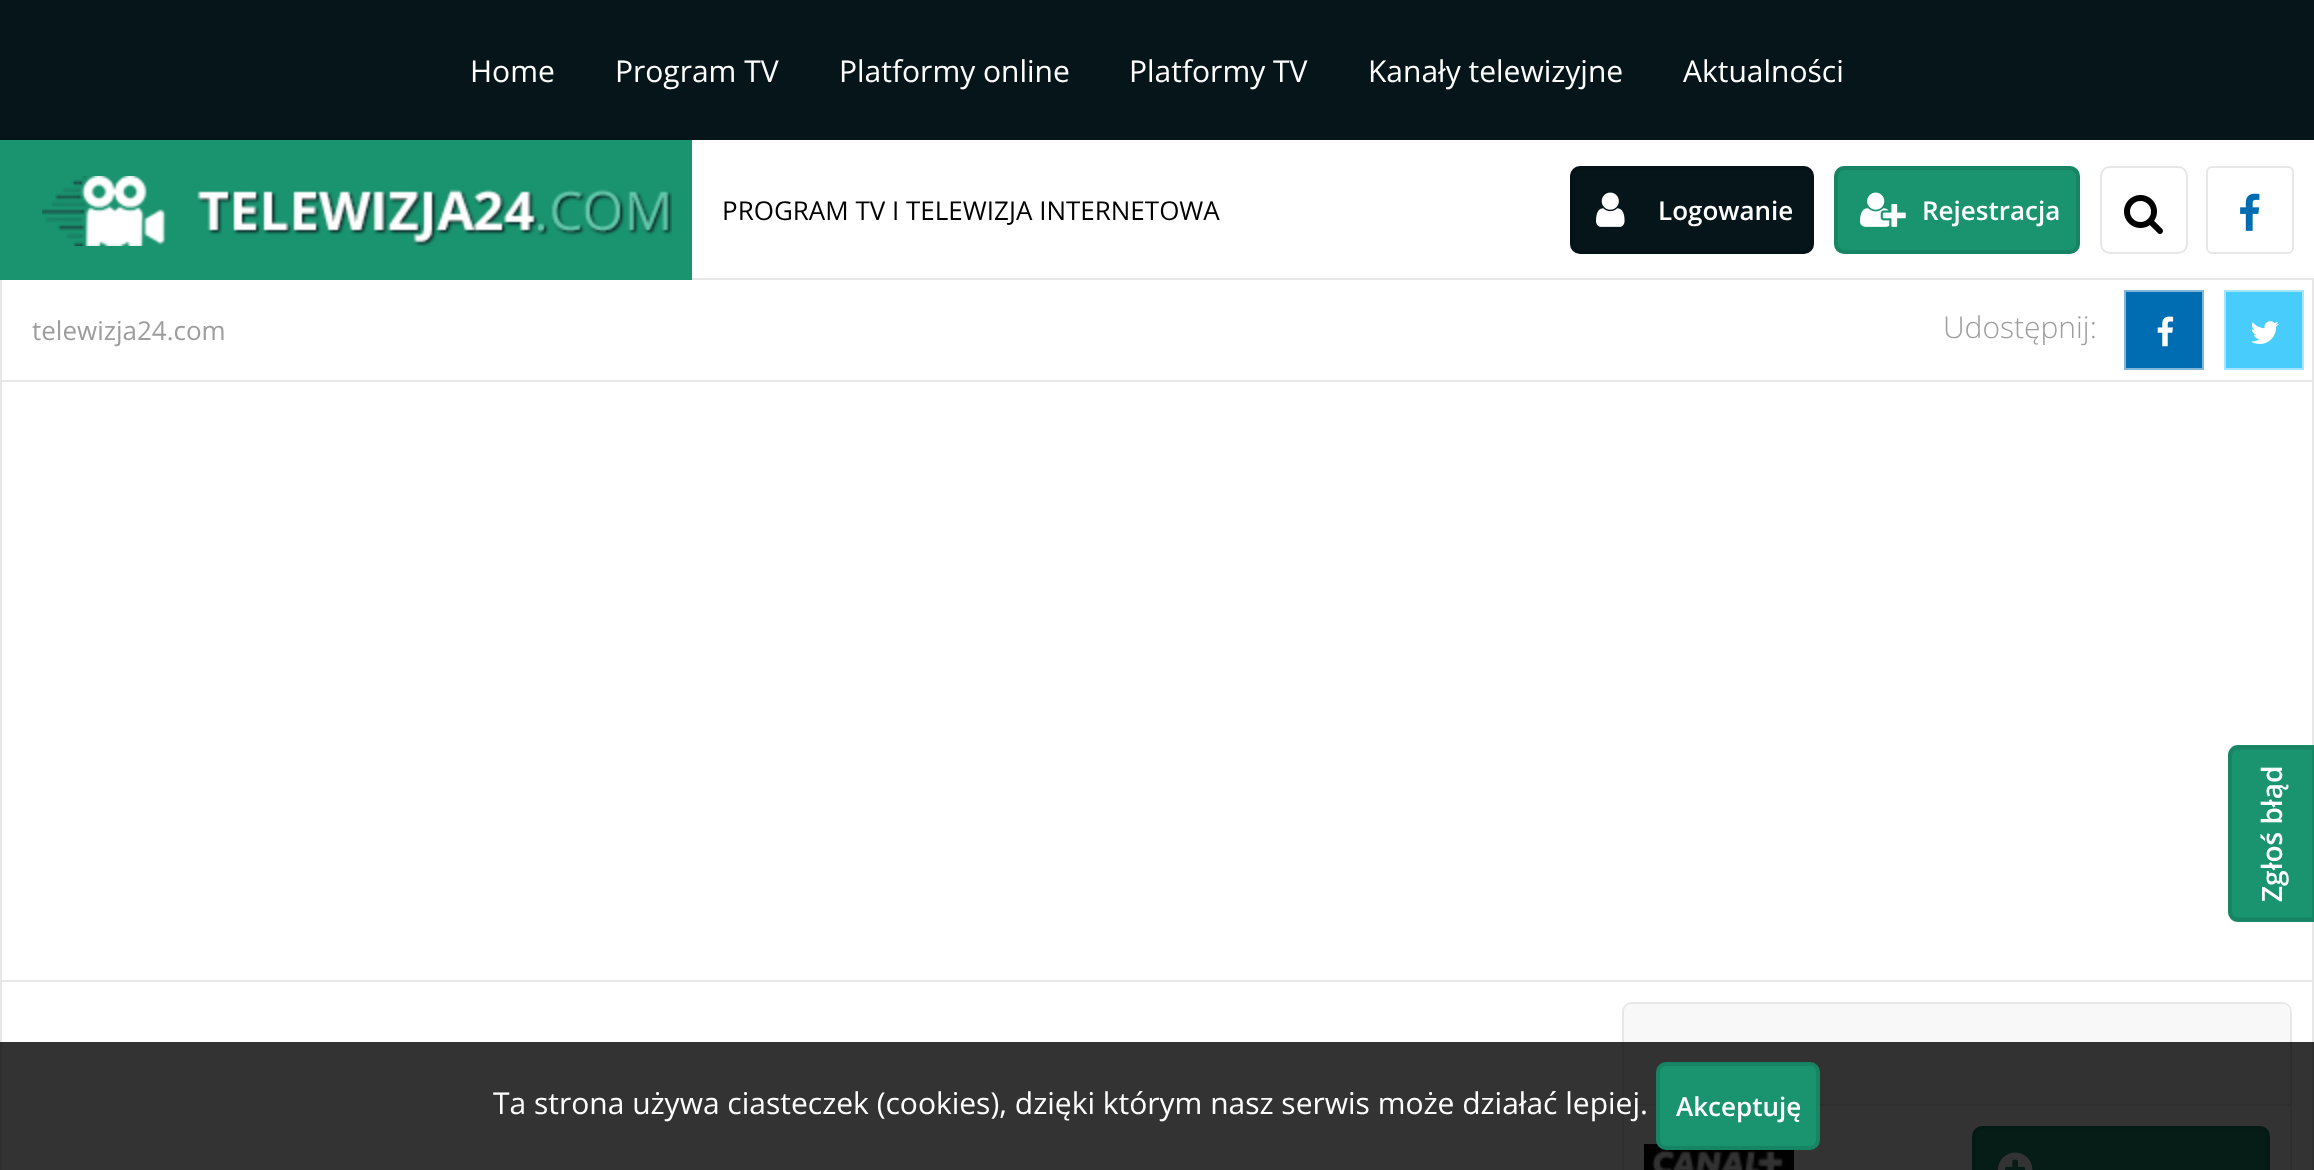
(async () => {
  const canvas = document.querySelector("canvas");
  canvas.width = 2314;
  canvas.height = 1170;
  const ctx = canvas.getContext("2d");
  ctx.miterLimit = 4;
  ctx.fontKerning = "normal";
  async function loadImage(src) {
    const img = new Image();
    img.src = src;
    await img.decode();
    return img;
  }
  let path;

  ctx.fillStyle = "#ffffff";
  ctx.fillRect(0, 0, 2314, 1170);
  for (const [x, y, w, h, color] of [
    [692, 278, 1622, 2, "#e7e7e7"],
    [0, 0, 2314, 140, "#05151a"],
    [0, 140, 692, 140, "#1a936f"],
  ]) {
    ctx.fillStyle = color;
    ctx.fillRect(x, y, w, h);
  }
  ctx.drawImage(await loadImage("img/1.png"), 42, 176, 630, 70);
  ctx.fillStyle = "#05151a";
  ctx.beginPath();
  ctx.roundRect(1570, 166, 244, 88, 10);
  ctx.fill();
  ctx.beginPath();
  ctx.roundRect(1572, 168, 240, 84, 8);
  ctx.strokeStyle = "rgba(0, 0, 0, 0.1)";
  ctx.lineWidth = 4;
  ctx.stroke();
  ctx.drawImage(await loadImage("img/2.png"), 1596, 192, 29, 35);
  ctx.fillStyle = "#1a936f";
  ctx.beginPath();
  ctx.roundRect(1834, 166, 246, 88, 10);
  ctx.fill();
  ctx.beginPath();
  ctx.roundRect(1836, 168, 242, 84, 8);
  ctx.stroke();
  ctx.drawImage(await loadImage("img/3.png"), 1860, 192, 46, 35);
  ctx.beginPath();
  ctx.roundRect(2101, 167, 86, 86, 9);
  ctx.strokeStyle = "#e7e7e7";
  ctx.lineWidth = 2;
  ctx.stroke();
  ctx.drawImage(await loadImage("img/4.png"), 2124, 195, 39, 39);
  ctx.beginPath();
  ctx.roundRect(2207, 167, 86, 86, 5);
  ctx.stroke();
  ctx.drawImage(await loadImage("img/5.png"), 2240, 193, 20, 38);
  for (const [x, y, w, h, color] of [
    [2312, 280, 2, 890, "#e7e7e7"],
    [0, 980, 2314, 2, "#e7e7e7"],
    [0, 280, 2, 890, "#e7e7e7"],
    [2, 380, 2310, 2, "#e7e7e7"],
  ]) {
    ctx.fillStyle = color;
    ctx.fillRect(x, y, w, h);
  }
  ctx.fillStyle = "#006cb2";
  ctx.beginPath();
  ctx.rect(2125, 291, 78, 78);
  ctx.fill();
  ctx.strokeStyle = "#80b6d9";
  ctx.stroke();
  ctx.drawImage(await loadImage("img/6.png"), 2157, 316, 17, 31);
  ctx.fillStyle = "#47ccfc";
  ctx.beginPath();
  ctx.rect(2225, 291, 78, 78);
  ctx.fill();
  ctx.strokeStyle = "#a3e6fe";
  ctx.stroke();
  ctx.drawImage(await loadImage("img/7.png"), 2251, 321, 28, 23);
  ctx.beginPath();
  ctx.roundRect(1623, 1003, 668, 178, 9);
  ctx.strokeStyle = "#e7e7e7";
  ctx.stroke();
  ctx.fillStyle = "#f8f8f8";
  ctx.beginPath();
  ctx.roundRect(1624, 1004, 666, 102, [8, 8, 0, 0]);
  ctx.fill();
  ctx.fillStyle = "#e7e7e7";
  ctx.fillRect(1624, 1104, 666, 2);
  ctx.drawImage(await loadImage("img/8.png"), 1644, 1144, 150, 26);
  ctx.fillStyle = "#1a936f";
  ctx.beginPath();
  ctx.roundRect(1972, 1126, 298, 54, 10);
  ctx.fill();
  ctx.beginPath();
  ctx.roundRect(1974, 1128, 294, 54, 8);
  ctx.strokeStyle = "rgba(0, 0, 0, 0.1)";
  ctx.lineWidth = 4;
  ctx.stroke();
  ctx.drawImage(await loadImage("img/9.png"), 1998, 1152, 35, 18);
  path = new Path2D("M2228 912V755C2228 750 2232 745 2238 745H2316V922H2238C2232 922 2228 917 2228 912Z");
  ctx.fill(path);
  path = new Path2D("M2230 911.5V755.5C2230 751 2233.5 747.5 2238 747.5H2314V919.5H2238C2233.5 919.5 2230 916 2230 911.5Z");
  ctx.stroke(path);
  ctx.fillStyle = "rgba(0, 0, 0, 0.8)";
  ctx.fillRect(0, 1042, 2314, 128);
  ctx.fillStyle = "#1a936f";
  ctx.beginPath();
  ctx.roundRect(1656, 1062, 164, 88, 10);
  ctx.fill();
  ctx.beginPath();
  ctx.roundRect(1658, 1064, 160, 84, 8);
  ctx.stroke();
  ctx.font = "30px Open Sans";
  ctx.fillStyle = "#ffffff";
  for (const [text, x, y] of [
    ["Home", 470, 82],
    ["Program TV", 615, 82],
    ["Platformy online", 839, 82],
    ["Platformy TV", 1129, 82],
    ["Kanały telewizyjne", 1368, 82],
    ["Aktualności", 1683, 82],
  ]) {
    ctx.fillText(text, x, y);
  }
  ctx.font = "26px Open Sans";
  ctx.fillStyle = "#000000";
  ctx.fillText("PROGRAM TV I TELEWIZJA INTERNETOWA", 722, 220);
  ctx.font = "600 26px Open Sans";
  ctx.fillStyle = "#ffffff";
  ctx.fillText("Logowanie", 1658, 220);
  ctx.fillText("Rejestracja", 1922, 220);
  ctx.font = "26px Open Sans";
  ctx.fillStyle = "#9d9d9d";
  ctx.fillText("telewizja24.com", 32, 340);
  ctx.font = "300 30px Open Sans";
  ctx.fillText("Udostępnij:", 1943, 338);
  ctx.font = "600 28px Open Sans";
  ctx.fillStyle = "#ffffff";
  ctx.save();
  ctx.translate(2282, 902);
  ctx.rotate(-90 * Math.PI / 180);
  ctx.fillText("Zgłoś błąd", 0, 0);
  ctx.restore();
  ctx.font = "30px Open Sans";
  ctx.fillText("Ta strona używa ciasteczek (cookies), dzięki którym nasz serwis może działać lepiej.", 493, 1114);
  ctx.font = "600 26px Open Sans";
  ctx.fillText("Akceptuję", 1676, 1116);
})();
